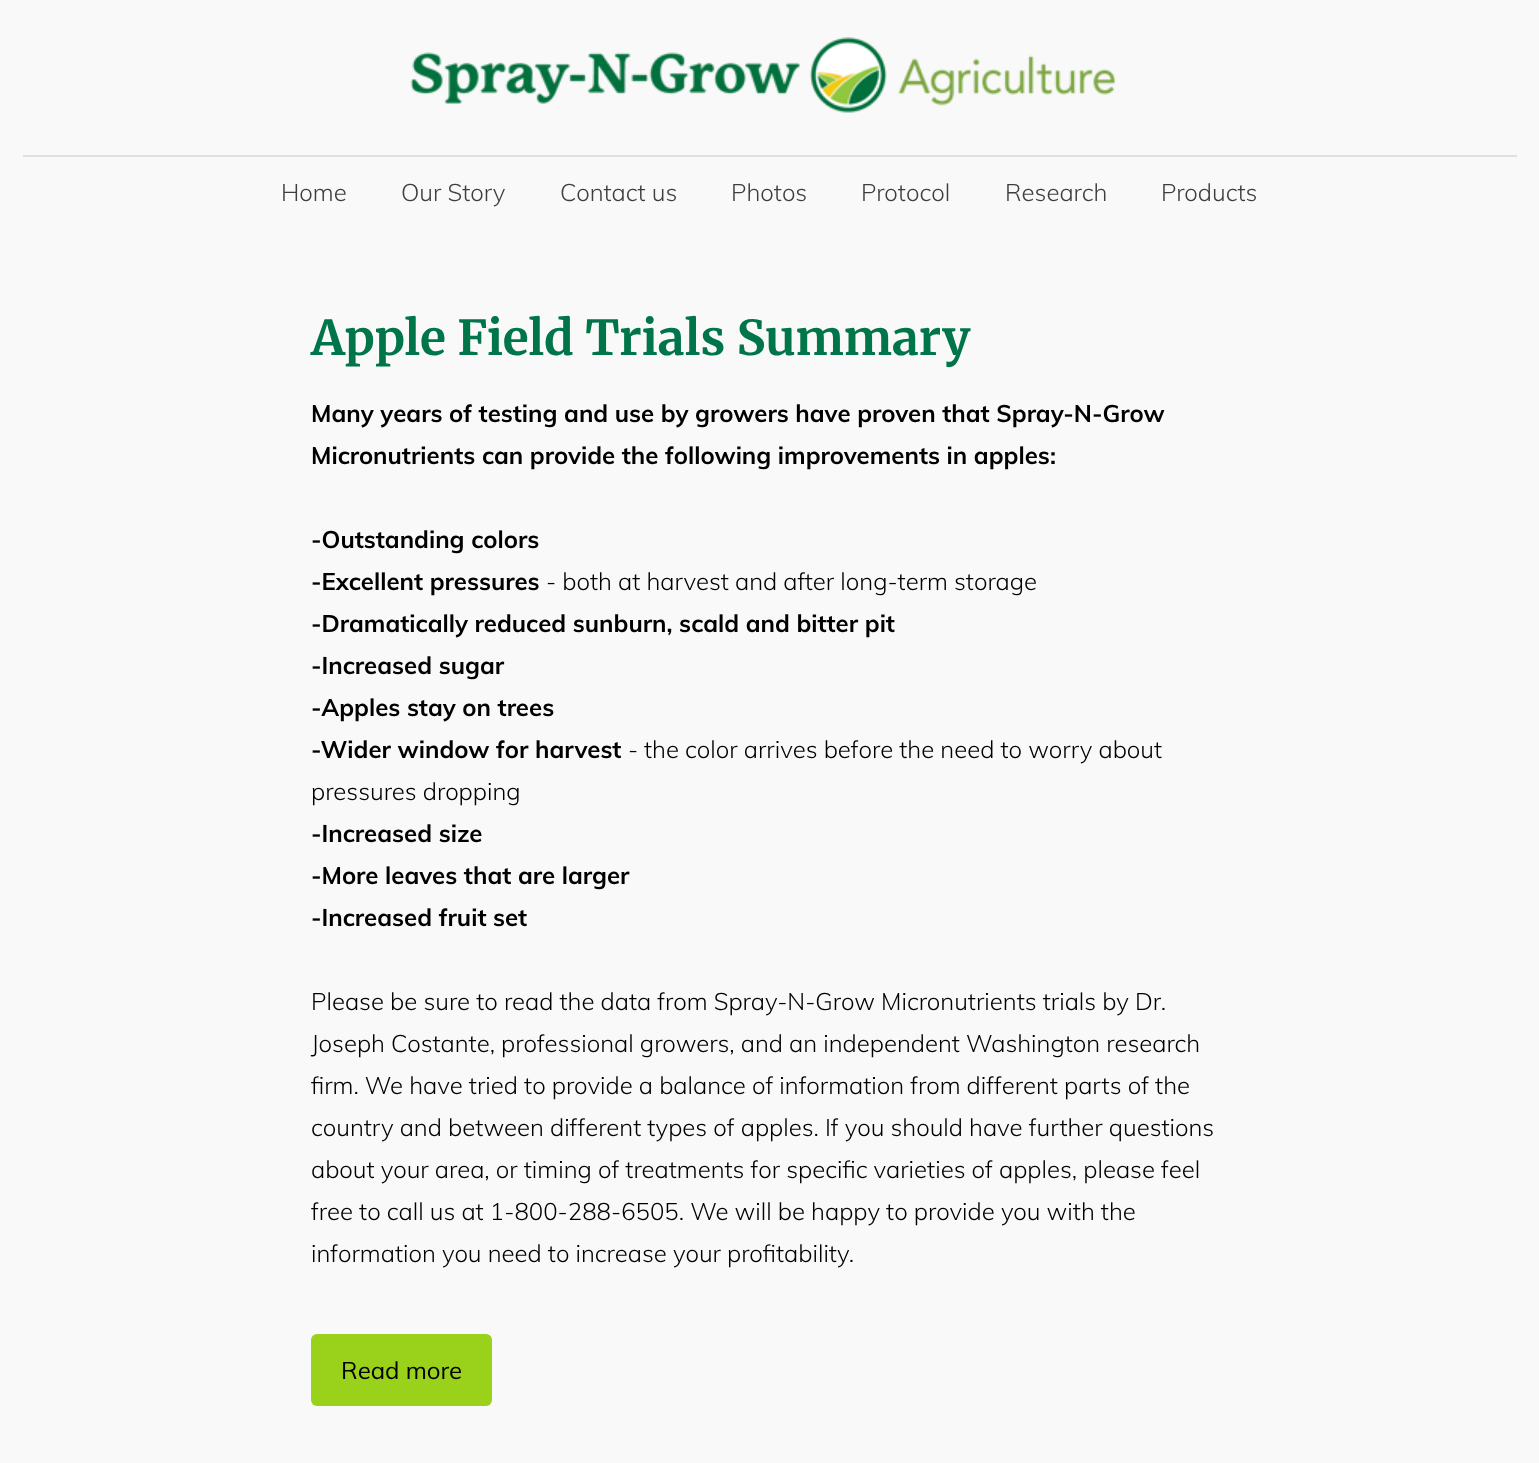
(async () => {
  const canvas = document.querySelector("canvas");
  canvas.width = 1539;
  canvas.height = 1463;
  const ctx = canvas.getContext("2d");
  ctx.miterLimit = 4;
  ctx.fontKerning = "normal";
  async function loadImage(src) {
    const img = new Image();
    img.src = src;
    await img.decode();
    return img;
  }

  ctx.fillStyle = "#f9f9f9";
  ctx.fillRect(0, 0, 1539, 1463);
  ctx.drawImage(await loadImage("img/1.png"), 410, 37, 706, 76);
  ctx.fillStyle = "#e0e0e0";
  ctx.fillRect(23, 155, 1494, 2);
  ctx.fillStyle = "#9ad11a";
  ctx.beginPath();
  ctx.roundRect(311, 1334, 181, 72, 6);
  ctx.fill();
  ctx.font = "300 24px Muli";
  ctx.fillStyle = "#3e3e3e";
  for (const [text, x, y] of [
    ["Home", 281, 201],
    ["Our Story", 401, 201],
    ["Contact us", 560, 201],
    ["Photos", 731, 201],
    ["Protocol", 861, 201],
    ["Research", 1005, 201],
    ["Products", 1161, 201],
  ]) {
    ctx.fillText(text, x, y);
  }
  ctx.font = "bold 48px Merriweather";
  ctx.fillStyle = "#007549";
  ctx.fillText("Apple Field Trials Summary", 311, 355);
  ctx.font = "bold 24px Muli";
  ctx.fillStyle = "#000000";
  for (const [text, x, y] of [
    ["Many years of testing and use by growers have proven that Spray-N-Grow", 311, 422],
    ["Micronutrients can provide the following improvements in apples:", 311, 464],
    ["-Outstanding colors", 311, 548],
    ["-Excellent pressures", 311, 590],
  ]) {
    ctx.fillText(text, x, y);
  }
  ctx.font = "300 24px Muli";
  ctx.fillText("- both at harvest and after long-term storage", 546, 590);
  ctx.font = "bold 24px Muli";
  for (const [text, x, y] of [
    ["-Dramatically reduced sunburn, scald and bitter pit", 311, 632],
    ["-Increased sugar", 311, 674],
    ["-Apples stay on trees", 311, 716],
    ["-Wider window for harvest", 311, 758],
  ]) {
    ctx.fillText(text, x, y);
  }
  ctx.font = "300 24px Muli";
  for (const [text, x, y] of [
    ["-", 628, 758],
    ["the color arrives before the need to worry about", 644, 758],
    ["pressures dropping", 311, 800],
  ]) {
    ctx.fillText(text, x, y);
  }
  ctx.font = "bold 24px Muli";
  for (const [text, x, y] of [
    ["-Increased size", 311, 842],
    ["-More leaves that are larger", 311, 884],
    ["-Increased fruit set", 311, 926],
  ]) {
    ctx.fillText(text, x, y);
  }
  ctx.font = "300 24px Muli";
  for (const [text, x, y] of [
    ["Please be sure to read the data from Spray-N-Grow Micronutrients trials by Dr.", 311, 1010],
    ["Joseph Costante, professional growers, and an independent Washington research", 311, 1052],
    ["firm. We have tried to provide a balance of information from different parts of the", 311, 1094],
    ["country and between different types of apples. If you should have further questions", 311, 1136],
    ["about your area, or timing of treatments for specific varieties of apples, please feel", 311, 1178],
    ["free to call us at 1-800-288-6505. We will be happy to provide you with the", 311, 1220],
    ["information you need to increase your profitability.", 311, 1262],
  ]) {
    ctx.fillText(text, x, y);
  }
  ctx.font = "24px Muli";
  ctx.fillText("Read more", 341, 1379);
})();
